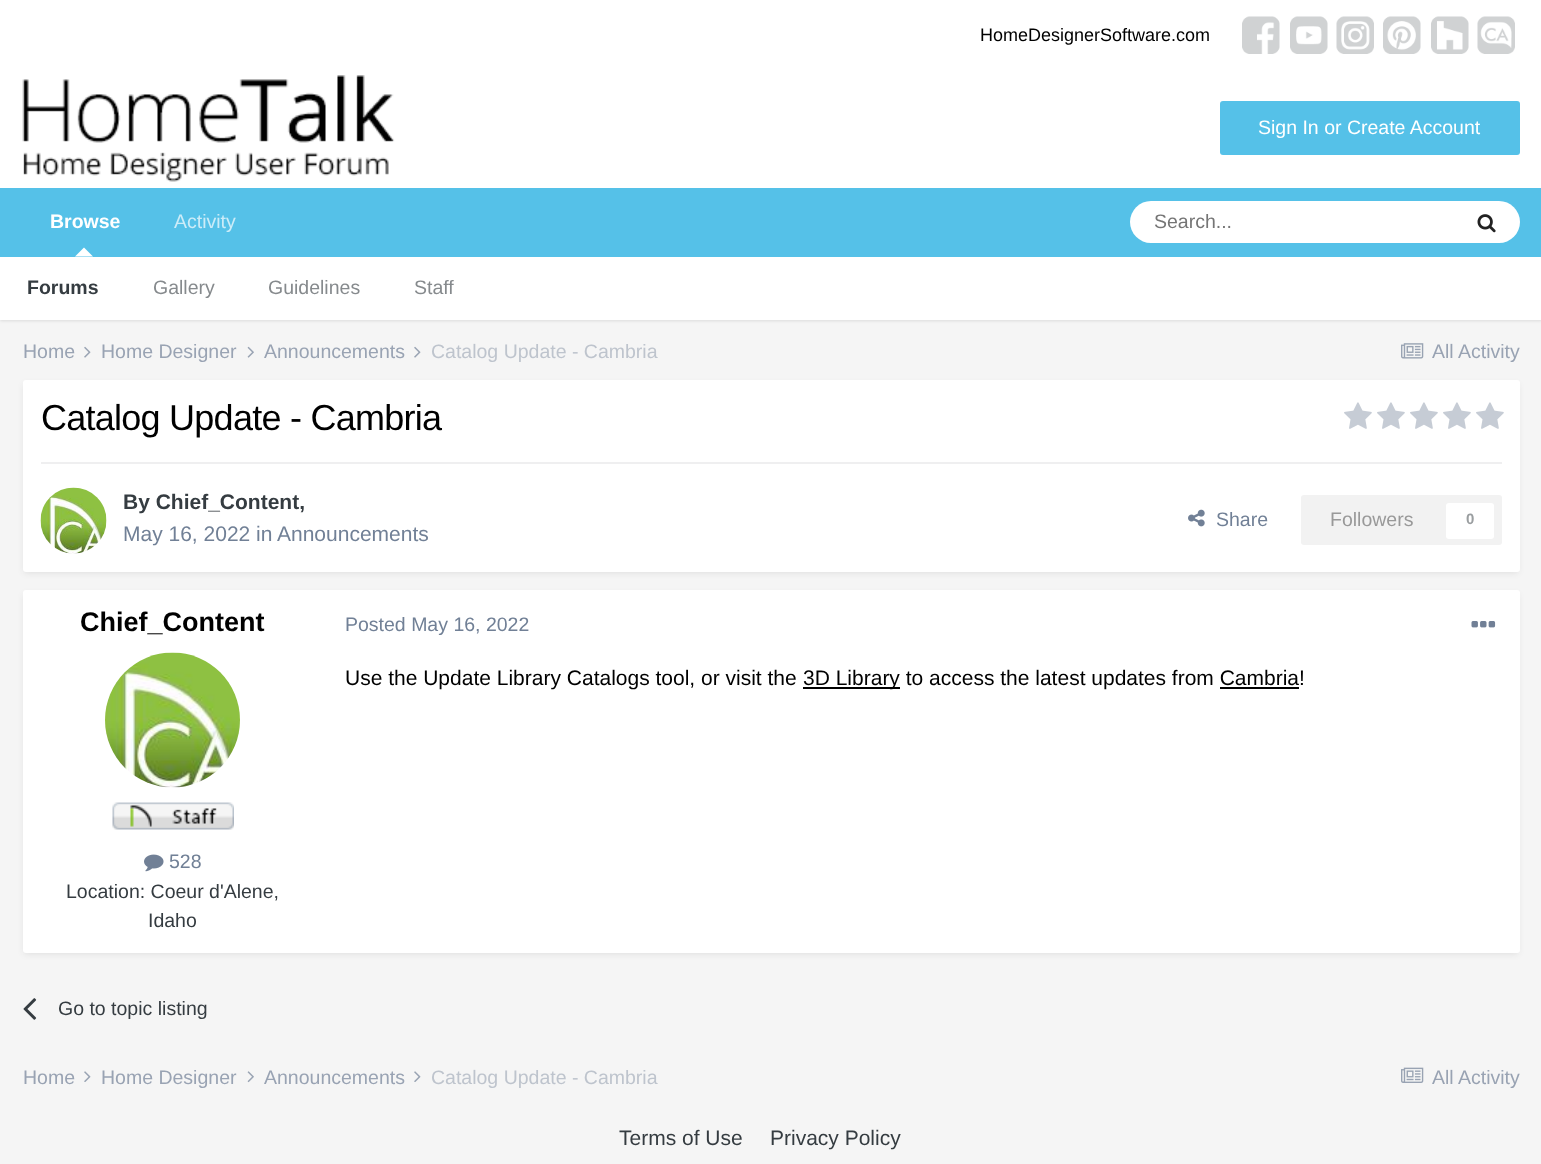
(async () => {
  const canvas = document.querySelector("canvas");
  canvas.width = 1541;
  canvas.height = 1164;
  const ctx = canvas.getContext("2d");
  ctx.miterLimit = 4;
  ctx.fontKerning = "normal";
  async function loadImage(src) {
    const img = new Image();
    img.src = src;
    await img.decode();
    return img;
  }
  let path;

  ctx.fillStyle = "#f5f5f5";
  ctx.fillRect(0, 0, 1541, 1164);
  ctx.fillStyle = "#ffffff";
  ctx.fillRect(0, 0, 1541, 188);
  ctx.drawImage(await loadImage("img/1.png"), 1242, 16, 38, 38);
  ctx.drawImage(await loadImage("img/2.png"), 1290, 16, 38, 38);
  ctx.drawImage(await loadImage("img/3.png"), 1336, 16, 38, 38);
  ctx.drawImage(await loadImage("img/4.png"), 1383, 16, 38, 38);
  ctx.drawImage(await loadImage("img/5.png"), 1431, 16, 38, 38);
  ctx.drawImage(await loadImage("img/6.png"), 1477, 16, 38, 38);
  ctx.drawImage(await loadImage("img/7.png"), 22, 75, 373, 107);
  ctx.fillStyle = "#55c1e8";
  ctx.beginPath();
  ctx.roundRect(1220, 101, 300, 54, 3);
  ctx.fill();
  ctx.fillStyle = "rgba(0, 0, 0, 0.1)";
  ctx.filter = "blur(1.5px)";
  ctx.beginPath();
  ctx.rect(0, 258, 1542, 63);
  ctx.fill();
  ctx.filter = "none";
  ctx.fillStyle = "#55c1e8";
  ctx.fillRect(0, 188, 1541, 69);
  ctx.fillStyle = "#ffffff";
  path = new Path2D("M93 256.5H75L84 247.5Z");
  ctx.fill(path);
  ctx.beginPath();
  ctx.roundRect(1130, 201, 390, 42, 21);
  ctx.fill();
  ctx.drawImage(await loadImage("img/8.png"), 1477, 214, 19, 19);
  ctx.fillRect(0, 257, 1541, 63);
  ctx.drawImage(await loadImage("img/9.png"), 84, 346, 7, 12);
  ctx.drawImage(await loadImage("img/10.png"), 247, 346, 7, 12);
  ctx.drawImage(await loadImage("img/9.png"), 414, 346, 7, 12);
  ctx.drawImage(await loadImage("img/11.png"), 1401, 343, 23, 16);
  ctx.fillStyle = "rgba(34, 34, 34, 0.1)";
  ctx.filter = "blur(3px)";
  ctx.beginPath();
  ctx.roundRect(24, 384, 1494, 189, 1.5);
  ctx.fill();
  ctx.filter = "none";
  ctx.fillStyle = "#ffffff";
  ctx.beginPath();
  ctx.roundRect(23, 380, 1497, 192, 3);
  ctx.fill();
  ctx.drawImage(await loadImage("img/12.png"), 1344, 402, 28, 27);
  ctx.drawImage(await loadImage("img/12.png"), 1377, 402, 28, 27);
  ctx.drawImage(await loadImage("img/12.png"), 1410, 402, 28, 27);
  ctx.drawImage(await loadImage("img/12.png"), 1443, 402, 28, 27);
  ctx.drawImage(await loadImage("img/12.png"), 1476, 402, 28, 27);
  ctx.fillStyle = "#efeff0";
  ctx.fillRect(41, 462, 1461, 2);
  ctx.drawImage(await loadImage("img/13.png"), 40, 487, 67, 67);
  ctx.drawImage(await loadImage("img/14.png"), 1188, 509, 17, 18);
  ctx.fillStyle = "#f2f2f2";
  ctx.beginPath();
  ctx.roundRect(1301, 495, 201, 50, 3);
  ctx.fill();
  ctx.fillStyle = "#ffffff";
  ctx.beginPath();
  ctx.roundRect(1446, 503, 48, 36, 3);
  ctx.fill();
  ctx.fillStyle = "rgba(34, 34, 34, 0.1)";
  ctx.filter = "blur(3px)";
  ctx.beginPath();
  ctx.roundRect(24, 594, 1494, 360, 1.5);
  ctx.fill();
  ctx.filter = "none";
  ctx.fillStyle = "#ffffff";
  ctx.beginPath();
  ctx.roundRect(23, 590, 1497, 363, 3);
  ctx.fill();
  ctx.drawImage(await loadImage("img/15.png"), 105, 652, 135, 136);
  ctx.drawImage(await loadImage("img/16.png"), 112, 802, 122, 28);
  ctx.drawImage(await loadImage("img/17.png"), 144, 854, 20, 18);
  ctx.drawImage(await loadImage("img/18.png"), 1471, 621, 25, 7);
  ctx.fillStyle = "#000000";
  ctx.fillRect(803, 687, 97, 2);
  ctx.fillRect(1220, 687, 79, 2);
  ctx.drawImage(await loadImage("img/19.png"), 23, 998, 14, 22);
  ctx.drawImage(await loadImage("img/20.png"), 84, 1071, 7, 11);
  ctx.drawImage(await loadImage("img/21.png"), 247, 1071, 7, 12);
  ctx.drawImage(await loadImage("img/20.png"), 414, 1071, 7, 11);
  ctx.drawImage(await loadImage("img/22.png"), 1401, 1067, 23, 16);
  ctx.font = "18px Liberation Sans";
  ctx.fillText("HomeDesignerSoftware.com", 980, 41);
  ctx.font = "19.5px Liberation Sans";
  ctx.fillStyle = "#ffffff";
  ctx.fillText("Sign In or Create Account", 1258, 134);
  ctx.fillStyle = "#ccecf8";
  ctx.fillText("Activity", 174, 228);
  ctx.font = "bold 19.5px Liberation Sans";
  ctx.fillStyle = "#ffffff";
  ctx.fillText("Browse", 50, 228);
  ctx.fillStyle = "#353c41";
  ctx.fillText("Forums", 27, 294);
  ctx.font = "19.5px Liberation Sans";
  ctx.fillStyle = "#868a8d";
  for (const [text, x, y] of [
    ["Gallery", 153, 294],
    ["Guidelines", 268, 294],
    ["Staff", 414, 294],
  ]) {
    ctx.fillText(text, x, y);
  }
  ctx.fillStyle = "#757575";
  ctx.fillText("Search...", 1154, 228);
  ctx.fillStyle = "#99a3b3";
  for (const [text, x, y] of [
    ["Home", 23, 358],
    ["Home Designer", 101, 358],
    ["Announcements", 264, 358],
  ]) {
    ctx.fillText(text, x, y);
  }
  ctx.fillStyle = "#bec4cd";
  ctx.fillText("Catalog Update - Cambria", 431, 358);
  ctx.fillStyle = "#99a3b3";
  ctx.fillText("All Activity", 1432, 358);
  ctx.letterSpacing = "-0.75px";
  ctx.font = "36px Liberation Sans";
  ctx.fillStyle = "#000000";
  ctx.fillText("Catalog Update - Cambria", 41, 430);
  ctx.letterSpacing = "0px";
  ctx.font = "bold 21px Liberation Sans";
  ctx.fillStyle = "#353c41";
  ctx.fillText("By Chief_Content,", 123, 509);
  ctx.font = "21px Liberation Sans";
  ctx.fillStyle = "#718096";
  for (const [text, x, y] of [
    ["May 16, 2022", 123, 541],
    ["in", 256, 541],
    ["Announcements", 277, 541],
  ]) {
    ctx.fillText(text, x, y);
  }
  ctx.font = "19.5px Liberation Sans";
  ctx.fillText("Share", 1216, 526);
  ctx.fillStyle = "#999999";
  ctx.fillText("Followers", 1330, 526);
  ctx.font = "bold 15px Liberation Sans";
  ctx.fillStyle = "#9a9ea0";
  ctx.fillText("0", 1466, 524);
  ctx.font = "bold 27px Liberation Sans";
  ctx.fillStyle = "#000000";
  ctx.fillText("Chief_Content", 80, 631);
  ctx.font = "19.5px Liberation Sans";
  ctx.fillStyle = "#718096";
  ctx.fillText("528", 169, 868);
  ctx.fillStyle = "#353c41";
  ctx.fillText("Location: Coeur d'Alene,", 66, 898);
  ctx.fillText("Idaho", 148, 927);
  ctx.fillStyle = "#718096";
  ctx.fillText("Posted May 16, 2022", 345, 631);
  ctx.font = "21px Liberation Sans";
  ctx.fillStyle = "#000000";
  ctx.fillText("Use the Update Library Catalogs tool, or visit the", 345, 685);
  ctx.fillText("3D Library to access the latest updates from Cambria!", 803, 685);
  ctx.font = "19.5px Liberation Sans";
  ctx.fillStyle = "#353c41";
  ctx.fillText("Go to topic listing", 58, 1015);
  ctx.fillStyle = "#99a3b3";
  for (const [text, x, y] of [
    ["Home", 23, 1084],
    ["Home Designer", 101, 1084],
    ["Announcements", 264, 1084],
  ]) {
    ctx.fillText(text, x, y);
  }
  ctx.fillStyle = "#bec4cd";
  ctx.fillText("Catalog Update - Cambria", 431, 1084);
  ctx.fillStyle = "#99a3b3";
  ctx.fillText("All Activity", 1432, 1084);
  ctx.font = "21px Liberation Sans";
  ctx.fillStyle = "#353c41";
  ctx.fillText("Terms of Use", 619, 1145);
  ctx.fillText("Privacy Policy", 770, 1145);
})();
